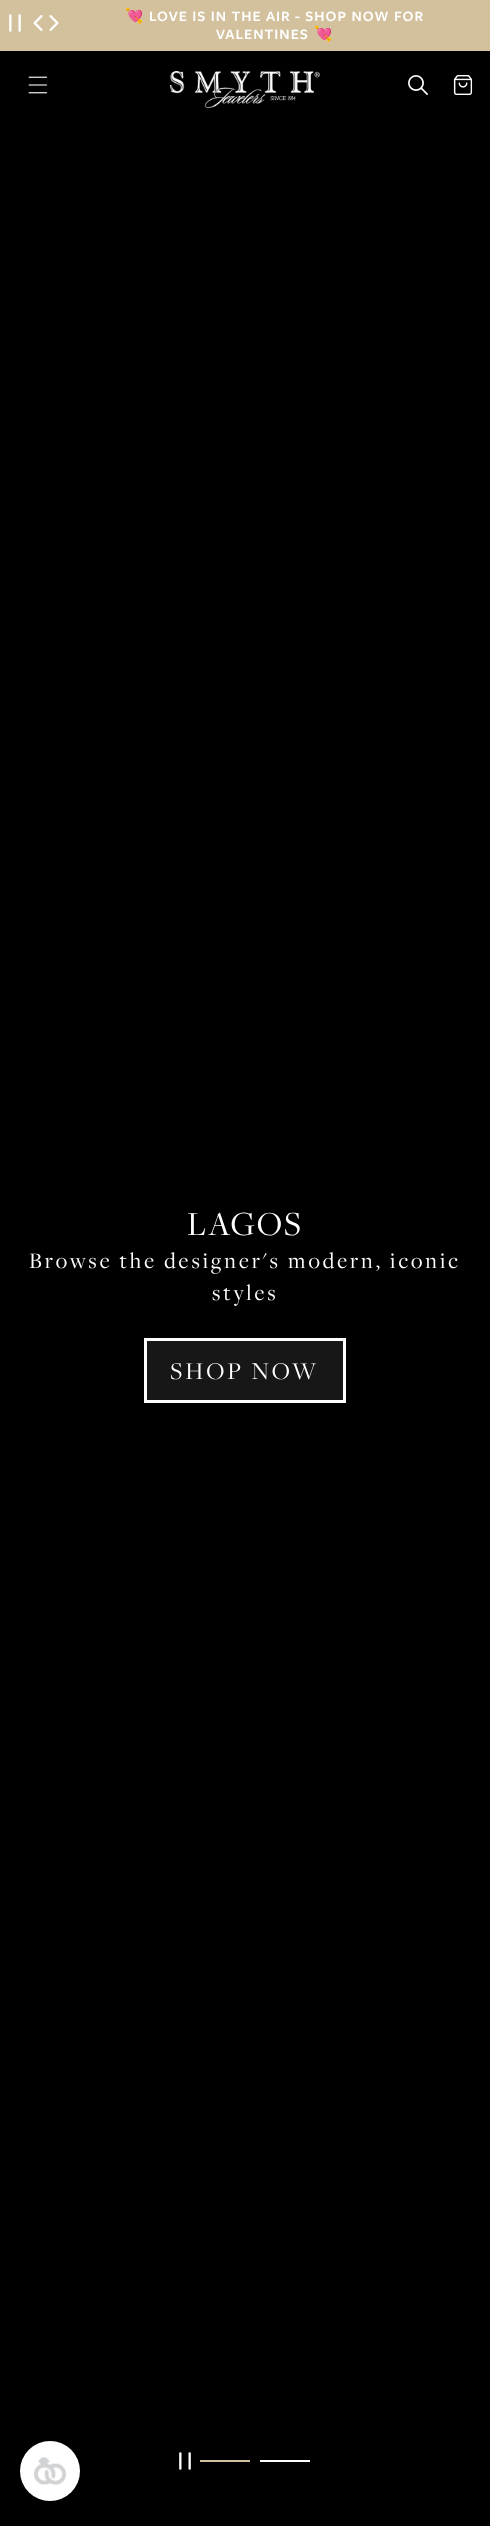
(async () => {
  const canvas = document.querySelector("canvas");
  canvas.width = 490;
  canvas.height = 2526;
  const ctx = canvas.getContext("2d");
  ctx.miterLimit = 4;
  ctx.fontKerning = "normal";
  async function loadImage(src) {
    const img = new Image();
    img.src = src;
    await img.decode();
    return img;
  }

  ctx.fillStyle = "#000000";
  ctx.fillRect(0, 0, 490, 2526);
  ctx.fillStyle = "#d3c19e";
  ctx.fillRect(0, 0, 490, 51);
  ctx.drawImage(await loadImage("img/1.png"), 9, 14, 12, 18);
  ctx.drawImage(await loadImage("img/2.png"), 33, 15, 10, 16);
  ctx.drawImage(await loadImage("img/3.png"), 49, 15, 10, 16);
  ctx.drawImage(await loadImage("img/4.png"), 28, 76, 20, 18);
  ctx.drawImage(await loadImage("img/5.png"), 170, 71, 150, 37);
  ctx.drawImage(await loadImage("img/6.png"), 408, 75, 20, 20);
  ctx.drawImage(await loadImage("img/7.png"), 453, 75, 20, 20);
  ctx.fillStyle = "#171717";
  ctx.beginPath();
  ctx.rect(145.5, 1339.5, 199, 62);
  ctx.fill();
  ctx.strokeStyle = "#ffffff";
  ctx.lineWidth = 3;
  ctx.stroke();
  ctx.drawImage(await loadImage("img/8.png"), 179, 2452, 12, 18);
  ctx.fillStyle = "#d3c19e";
  ctx.fillRect(200, 2460, 50, 2);
  ctx.fillStyle = "#ffffff";
  ctx.fillRect(260, 2460, 50, 2);
  ctx.beginPath();
  ctx.arc(50, 2471, 30, 0, Math.PI * 2);
  ctx.fill();
  ctx.drawImage(await loadImage("img/9.png"), 34, 2457, 33, 28);
  ctx.letterSpacing = "1px";
  ctx.font = "bold 15px Noto Color Emoji";
  ctx.fillText("💘", 125, 21);
  ctx.font = "600 15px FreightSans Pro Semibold";
  ctx.fillText("LOVE IS IN THE AIR - SHOP NOW FOR", 149, 21);
  ctx.fillText("VALENTINES", 216, 39);
  ctx.font = "bold 15px Noto Color Emoji";
  ctx.fillText("💘", 314, 39);
  ctx.letterSpacing = "2px";
  ctx.font = "35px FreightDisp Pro";
  ctx.fillText("LAGOS", 187, 1235);
  ctx.letterSpacing = "3px";
  ctx.font = "23px FreightDisp Pro";
  ctx.fillText("Browse the designer's modern, iconic", 29, 1268);
  ctx.fillText("styles", 212, 1300);
  ctx.font = "25px FreightDisp Pro";
  ctx.fillText("SHOP NOW", 170, 1379);
})();
